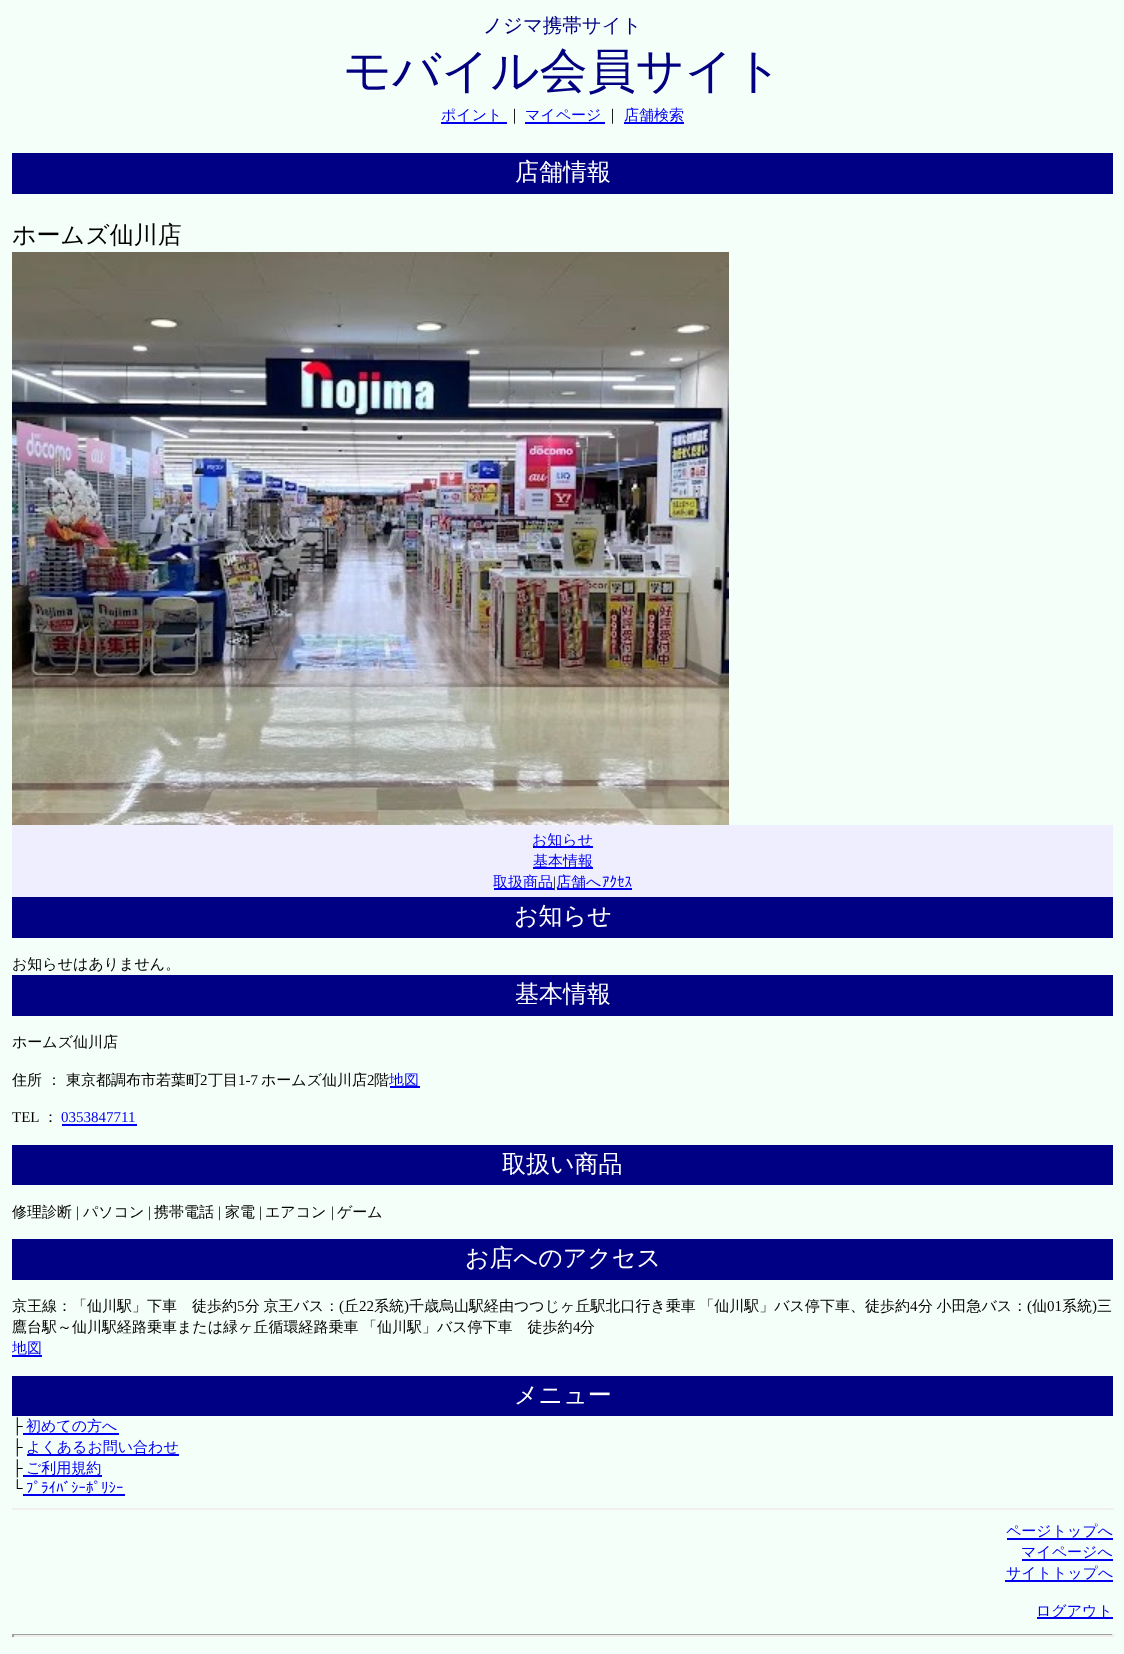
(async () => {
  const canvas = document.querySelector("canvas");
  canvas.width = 1124;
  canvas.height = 1654;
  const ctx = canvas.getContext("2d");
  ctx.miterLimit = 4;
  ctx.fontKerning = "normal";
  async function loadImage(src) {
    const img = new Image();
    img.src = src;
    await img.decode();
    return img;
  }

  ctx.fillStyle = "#f5fffa";
  ctx.fillRect(0, 0, 1124, 1654);
  for (const [x, y, w, h, color] of [
    [441, 122, 66, 2, "#0000ee"],
    [525, 122, 80, 2, "#0000ee"],
    [624, 122, 60, 2, "#0000ee"],
    [12, 153, 1101, 41, "#000085"],
  ]) {
    ctx.fillStyle = color;
    ctx.fillRect(x, y, w, h);
  }
  ctx.drawImage(await loadImage("img/1.png"), 12, 252, 717, 573);
  for (const [x, y, w, h, color] of [
    [12, 825, 1101, 72, "#eeeeff"],
    [533, 846, 60, 2, "#0000ee"],
    [533, 867, 60, 2, "#0000ee"],
    [494, 888, 60, 2, "#0000ee"],
    [557, 888, 75, 2, "#0000ee"],
    [12, 897, 1101, 41, "#000085"],
    [12, 975, 1101, 41, "#000085"],
    [390, 1086, 30, 2, "#0000ee"],
    [62, 1124, 75, 2, "#0000ee"],
    [12, 1145, 1101, 40, "#000085"],
    [12, 1239, 1101, 41, "#000085"],
    [12, 1355, 30, 2, "#0000ee"],
    [12, 1376, 1101, 40, "#000085"],
    [23, 1433, 96, 2, "#0000ee"],
    [27, 1454, 152, 2, "#0000ee"],
    [23, 1475, 79, 2, "#0000ee"],
    [23, 1494, 102, 2, "#0000ee"],
    [12, 1508, 1102, 2, "#f0f0f0"],
    [1007, 1538, 106, 2, "#0000ee"],
    [1022, 1559, 91, 2, "#0000ee"],
    [1005, 1580, 108, 2, "#0000ee"],
    [1037, 1617, 76, 2, "#0000ee"],
    [12, 1634, 1101, 1, "#9f9f9f"],
    [1112, 1634, 2, 3, "#eeeeee"],
    [12, 1635, 1101, 2, "#eeeeee"],
    [12, 1634, 2, 3, "#9f9f9f"],
  ]) {
    ctx.fillStyle = color;
    ctx.fillRect(x, y, w, h);
  }
  ctx.font = "500 19.5px WenQuanYi Zen Hei";
  ctx.fillStyle = "#000080";
  ctx.fillText("ノジマ携帯サイト", 483, 32);
  ctx.font = "500 48px WenQuanYi Zen Hei";
  ctx.fillText("モバイル会員サイト", 343, 87);
  ctx.font = "500 15px WenQuanYi Zen Hei";
  ctx.fillStyle = "#0000ee";
  ctx.fillText("ポイント", 441, 120);
  ctx.fillStyle = "#000000";
  ctx.fillText("｜", 507, 120);
  ctx.fillStyle = "#0000ee";
  ctx.fillText("マイページ", 525, 120);
  ctx.fillStyle = "#000000";
  ctx.fillText("｜", 605, 120);
  ctx.fillStyle = "#0000ee";
  ctx.fillText("店舗検索", 624, 120);
  ctx.font = "500 24px WenQuanYi Zen Hei";
  ctx.fillStyle = "#ffffff";
  ctx.fillText("店舗情報", 515, 180);
  ctx.fillStyle = "#000000";
  ctx.fillText("ホームズ仙川店", 12, 243);
  ctx.font = "500 15px WenQuanYi Zen Hei";
  ctx.fillStyle = "#0000ee";
  for (const [text, x, y] of [
    ["お知らせ", 532, 845],
    ["基本情報", 533, 866],
    ["取扱商品", 493, 887],
  ]) {
    ctx.fillText(text, x, y);
  }
  ctx.font = "15px Liberation Serif";
  ctx.fillStyle = "#000000";
  ctx.fillText("|", 553, 887);
  ctx.font = "500 15px WenQuanYi Zen Hei";
  ctx.fillStyle = "#0000ee";
  ctx.fillText("店舗へ", 556, 887);
  ctx.font = "15px IPAGothic";
  ctx.fillText("ｱｸｾｽ", 602, 887);
  ctx.font = "500 24px WenQuanYi Zen Hei";
  ctx.fillStyle = "#ffffff";
  ctx.fillText("お知らせ", 514, 924);
  ctx.font = "500 15px WenQuanYi Zen Hei";
  ctx.fillStyle = "#000000";
  ctx.fillText("お知らせはありません。", 12, 969);
  ctx.font = "500 24px WenQuanYi Zen Hei";
  ctx.fillStyle = "#ffffff";
  ctx.fillText("基本情報", 515, 1002);
  ctx.font = "500 15px WenQuanYi Zen Hei";
  ctx.fillStyle = "#000000";
  ctx.fillText("ホームズ仙川店", 12, 1047);
  ctx.fillText("住所 ： 東京都調布市若葉町", 12, 1085);
  ctx.font = "15px Liberation Serif";
  ctx.fillText("2", 200, 1085);
  ctx.font = "500 15px WenQuanYi Zen Hei";
  ctx.fillText("丁目", 208, 1085);
  ctx.font = "15px Liberation Serif";
  ctx.fillText("1-7", 238, 1085);
  ctx.font = "500 15px WenQuanYi Zen Hei";
  ctx.fillText("ホームズ仙川店", 261, 1085);
  ctx.font = "15px Liberation Serif";
  ctx.fillText("2", 367, 1085);
  ctx.font = "500 15px WenQuanYi Zen Hei";
  ctx.fillText("階", 374, 1085);
  ctx.fillStyle = "#0000ee";
  ctx.fillText("地図", 389, 1085);
  ctx.font = "15px Liberation Serif";
  ctx.fillStyle = "#000000";
  ctx.fillText("TEL", 12, 1122);
  ctx.font = "500 15px WenQuanYi Zen Hei";
  ctx.fillText("：", 43, 1122);
  ctx.font = "15px Liberation Serif";
  ctx.fillStyle = "#0000ee";
  ctx.fillText("0353847711", 61, 1122);
  ctx.font = "500 24px WenQuanYi Zen Hei";
  ctx.fillStyle = "#ffffff";
  ctx.fillText("取扱い商品", 502, 1172);
  ctx.font = "500 15px WenQuanYi Zen Hei";
  ctx.fillStyle = "#000000";
  ctx.fillText("修理診断", 12, 1217);
  ctx.font = "15px Liberation Serif";
  ctx.fillText("|", 76, 1217);
  ctx.font = "500 15px WenQuanYi Zen Hei";
  ctx.fillText("パソコン", 83, 1217);
  ctx.font = "15px Liberation Serif";
  ctx.fillText("|", 148, 1217);
  ctx.font = "500 15px WenQuanYi Zen Hei";
  ctx.fillText("携帯電話", 154, 1217);
  ctx.font = "15px Liberation Serif";
  ctx.fillText("|", 218, 1217);
  ctx.font = "500 15px WenQuanYi Zen Hei";
  ctx.fillText("家電", 225, 1217);
  ctx.font = "15px Liberation Serif";
  ctx.fillText("|", 259, 1217);
  ctx.font = "500 15px WenQuanYi Zen Hei";
  ctx.fillText("エアコン", 265, 1217);
  ctx.font = "15px Liberation Serif";
  ctx.fillText("|", 331, 1217);
  ctx.font = "500 15px WenQuanYi Zen Hei";
  ctx.fillText("ゲーム", 337, 1217);
  ctx.font = "500 24px WenQuanYi Zen Hei";
  ctx.fillStyle = "#ffffff";
  ctx.fillText("お店へのアクセス", 465, 1266);
  ctx.font = "500 15px WenQuanYi Zen Hei";
  ctx.fillStyle = "#000000";
  ctx.fillText("京王線：「仙川駅」下車　徒歩約", 12, 1311);
  ctx.font = "15px Liberation Serif";
  ctx.fillText("5", 237, 1311);
  ctx.wordSpacing = "-1px";
  ctx.font = "500 15px WenQuanYi Zen Hei";
  ctx.fillText("分 京王バス：", 245, 1311);
  ctx.wordSpacing = "0px";
  ctx.font = "15px Liberation Serif";
  ctx.fillText("(", 339, 1311);
  ctx.font = "500 15px WenQuanYi Zen Hei";
  ctx.fillText("丘", 344, 1311);
  ctx.font = "15px Liberation Serif";
  ctx.fillText("22", 359, 1311);
  ctx.font = "500 15px WenQuanYi Zen Hei";
  ctx.fillText("系統", 374, 1311);
  ctx.font = "15px Liberation Serif";
  ctx.fillText(")", 404, 1311);
  ctx.wordSpacing = "-1px";
  ctx.font = "500 15px WenQuanYi Zen Hei";
  ctx.fillText("千歳烏山駅経由つつじヶ丘駅北口行き乗車 「仙川駅」バス停下車、徒歩約", 409, 1311);
  ctx.wordSpacing = "0px";
  ctx.font = "15px Liberation Serif";
  ctx.fillText("4", 910, 1311);
  ctx.wordSpacing = "-1px";
  ctx.font = "500 15px WenQuanYi Zen Hei";
  ctx.fillText("分 小田急バス：", 918, 1311);
  ctx.wordSpacing = "0px";
  ctx.font = "15px Liberation Serif";
  ctx.fillText("(", 1027, 1311);
  ctx.font = "500 15px WenQuanYi Zen Hei";
  ctx.fillText("仙", 1032, 1311);
  ctx.font = "15px Liberation Serif";
  ctx.fillText("01", 1047, 1311);
  ctx.font = "500 15px WenQuanYi Zen Hei";
  ctx.fillText("系統", 1062, 1311);
  ctx.font = "15px Liberation Serif";
  ctx.fillText(")", 1092, 1311);
  ctx.font = "500 15px WenQuanYi Zen Hei";
  ctx.fillText("三", 1097, 1311);
  ctx.wordSpacing = "-1px";
  ctx.fillText("鷹台駅～仙川駅経路乗車または緑ヶ丘循環経路乗車 「仙川駅」バス停下車　徒歩約", 12, 1332);
  ctx.wordSpacing = "0px";
  ctx.font = "15px Liberation Serif";
  ctx.fillText("4", 573, 1332);
  ctx.font = "500 15px WenQuanYi Zen Hei";
  ctx.fillText("分", 580, 1332);
  ctx.fillStyle = "#0000ee";
  ctx.fillText("地図", 12, 1353);
  ctx.font = "500 24px WenQuanYi Zen Hei";
  ctx.fillStyle = "#ffffff";
  ctx.fillText("メニュー", 514, 1403);
  ctx.font = "15px Liberation Serif";
  ctx.fillStyle = "#000000";
  ctx.fillText("├", 12, 1431);
  ctx.font = "500 15px WenQuanYi Zen Hei";
  ctx.fillStyle = "#0000ee";
  ctx.fillText("初めての方へ", 26, 1431);
  ctx.font = "15px Liberation Serif";
  ctx.fillStyle = "#000000";
  ctx.fillText("├", 12, 1452);
  ctx.font = "500 15px WenQuanYi Zen Hei";
  ctx.fillStyle = "#0000ee";
  ctx.fillText("よくあるお問い合わせ", 26, 1452);
  ctx.font = "15px Liberation Serif";
  ctx.fillStyle = "#000000";
  ctx.fillText("├", 12, 1473);
  ctx.font = "500 15px WenQuanYi Zen Hei";
  ctx.fillStyle = "#0000ee";
  ctx.fillText("ご利用規約", 26, 1473);
  ctx.font = "15px Liberation Serif";
  ctx.fillStyle = "#000000";
  ctx.fillText("└", 12, 1493);
  ctx.font = "15px IPAGothic";
  ctx.fillStyle = "#0000ee";
  ctx.fillText("ﾌﾟﾗｲﾊﾞｼｰﾎﾟﾘｼｰ", 26, 1493);
  ctx.font = "500 15px WenQuanYi Zen Hei";
  for (const [text, x, y] of [
    ["ページトップへ", 1006, 1536],
    ["マイページへ", 1021, 1557],
    ["サイトトップへ", 1006, 1578],
    ["ログアウト", 1036, 1616],
  ]) {
    ctx.fillText(text, x, y);
  }
})();
